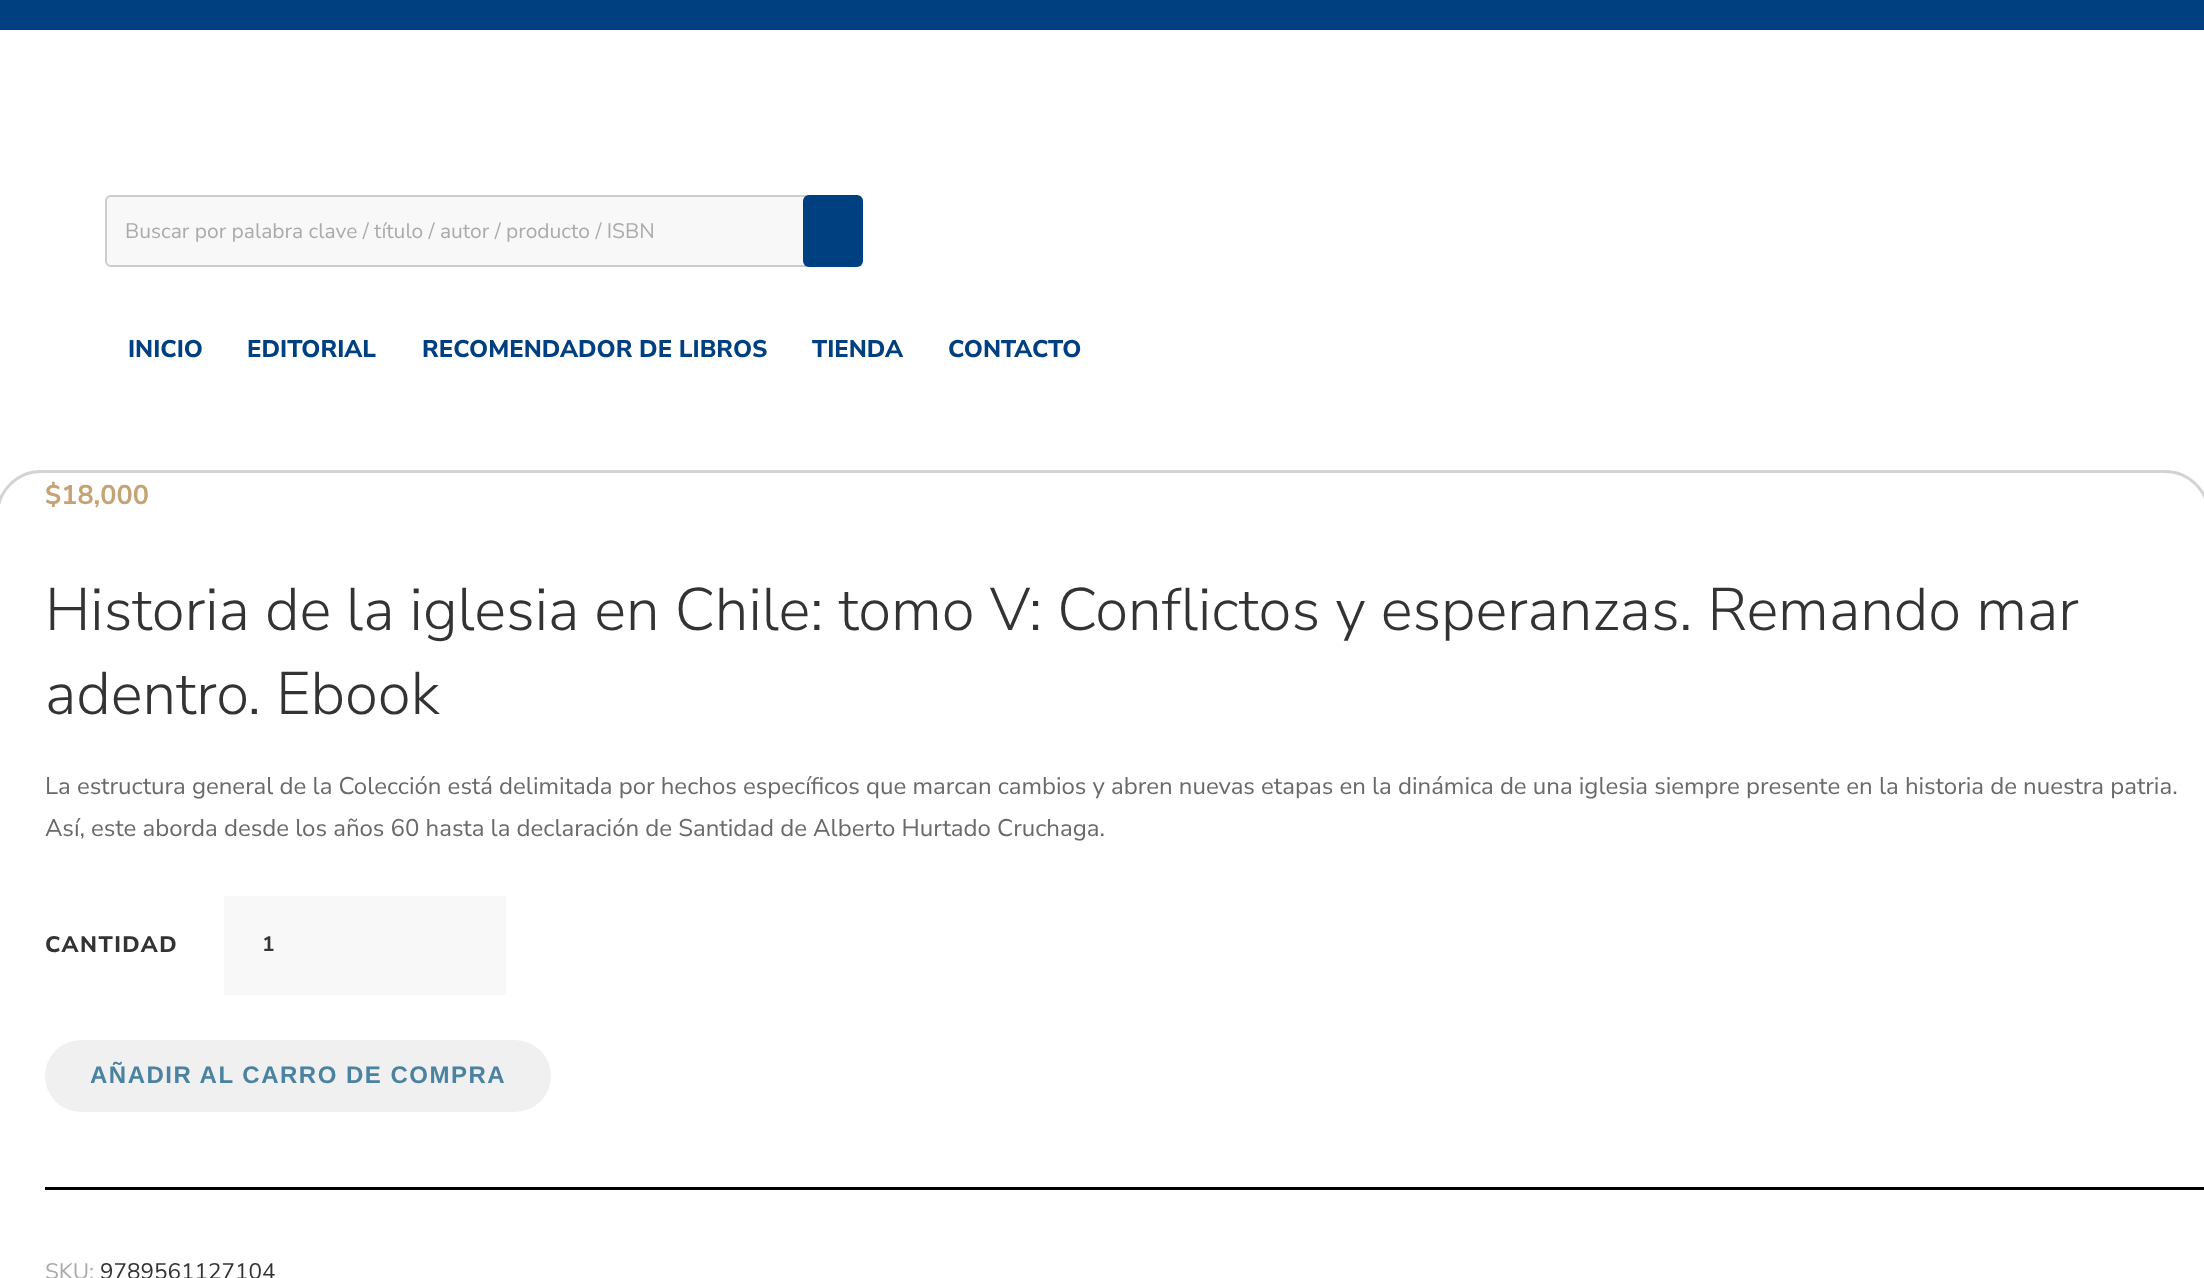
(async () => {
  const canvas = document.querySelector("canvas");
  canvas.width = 2204;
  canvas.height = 1278;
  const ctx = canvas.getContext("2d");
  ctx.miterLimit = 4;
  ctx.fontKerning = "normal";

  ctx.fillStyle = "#ffffff";
  ctx.fillRect(0, 0, 2204, 1278);
  ctx.fillStyle = "#004080";
  ctx.fillRect(0, 0, 2204, 30);
  ctx.fillStyle = "#f8f8f8";
  ctx.beginPath();
  ctx.roundRect(106, 196, 748, 70, 5);
  ctx.fill();
  ctx.strokeStyle = "#cccccc";
  ctx.lineWidth = 2;
  ctx.stroke();
  ctx.fillStyle = "#004080";
  ctx.beginPath();
  ctx.roundRect(803, 195, 60, 72, 6);
  ctx.fill();
  ctx.fillStyle = "#f8f8f8";
  ctx.fillRect(224, 896, 282, 99);
  ctx.fillStyle = "#f0f0f0";
  ctx.beginPath();
  ctx.roundRect(45, 1040, 506, 72, 36);
  ctx.fill();
  ctx.fillStyle = "#000000";
  ctx.fillRect(45, 1187, 2159, 3);
  ctx.beginPath();
  ctx.roundRect(-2.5, 471.5, 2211, 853, 43.5);
  ctx.strokeStyle = "#d3d3d3";
  ctx.lineWidth = 3;
  ctx.stroke();
  ctx.font = "21px Nunito Sans";
  ctx.fillStyle = "#ababab";
  ctx.fillText("Buscar por palabra clave / título / autor / producto / ISBN", 125, 238);
  ctx.font = "800 24px Nunito Sans";
  ctx.fillStyle = "#004080";
  for (const [text, x, y] of [
    ["INICIO", 128, 357],
    ["EDITORIAL", 247, 357],
    ["RECOMENDADOR DE LIBROS", 422, 357],
    ["TIENDA", 812, 357],
    ["CONTACTO", 948, 357],
  ]) {
    ctx.fillText(text, x, y);
  }
  ctx.font = "bold 27px Nunito Sans";
  ctx.fillStyle = "#c5a374";
  ctx.fillText("$18,000", 45, 504);
  ctx.font = "300 60px Nunito Sans";
  ctx.fillStyle = "#333333";
  ctx.fillText("Historia de la iglesia en Chile: tomo V: Conflictos y esperanzas. Remando mar", 45, 630);
  ctx.fillText("adentro. Ebook", 45, 714);
  ctx.font = "24px Nunito Sans";
  ctx.fillStyle = "#696969";
  ctx.fillText("La estructura general de la Colección está delimitada por hechos específicos que marcan cambios y abren nuevas etapas en la dinámica de una iglesia siempre presente en la historia de nuestra patria.", 45, 794);
  ctx.fillText("Así, este aborda desde los años 60 hasta la declaración de Santidad de Alberto Hurtado Cruchaga.", 45, 836);
  ctx.letterSpacing = "1.5px";
  ctx.font = "800 22.5px Nunito Sans";
  ctx.fillStyle = "#333333";
  ctx.fillText("CANTIDAD", 45, 952);
  ctx.letterSpacing = "0px";
  ctx.font = "bold 21px Nunito Sans";
  ctx.fillText("1", 262, 951);
  ctx.letterSpacing = "1.5px";
  ctx.font = "bold 24px Liberation Sans";
  ctx.fillStyle = "#4a82a1";
  ctx.fillText("AÑADIR AL CARRO DE COMPRA", 90, 1083);
  ctx.letterSpacing = "0px";
  ctx.font = "22.5px Nunito Sans";
  ctx.fillStyle = "#ababab";
  ctx.fillText("SKU:", 45, 1279);
  ctx.fillStyle = "#333333";
  ctx.fillText("9789561127104", 100, 1279);
})();
